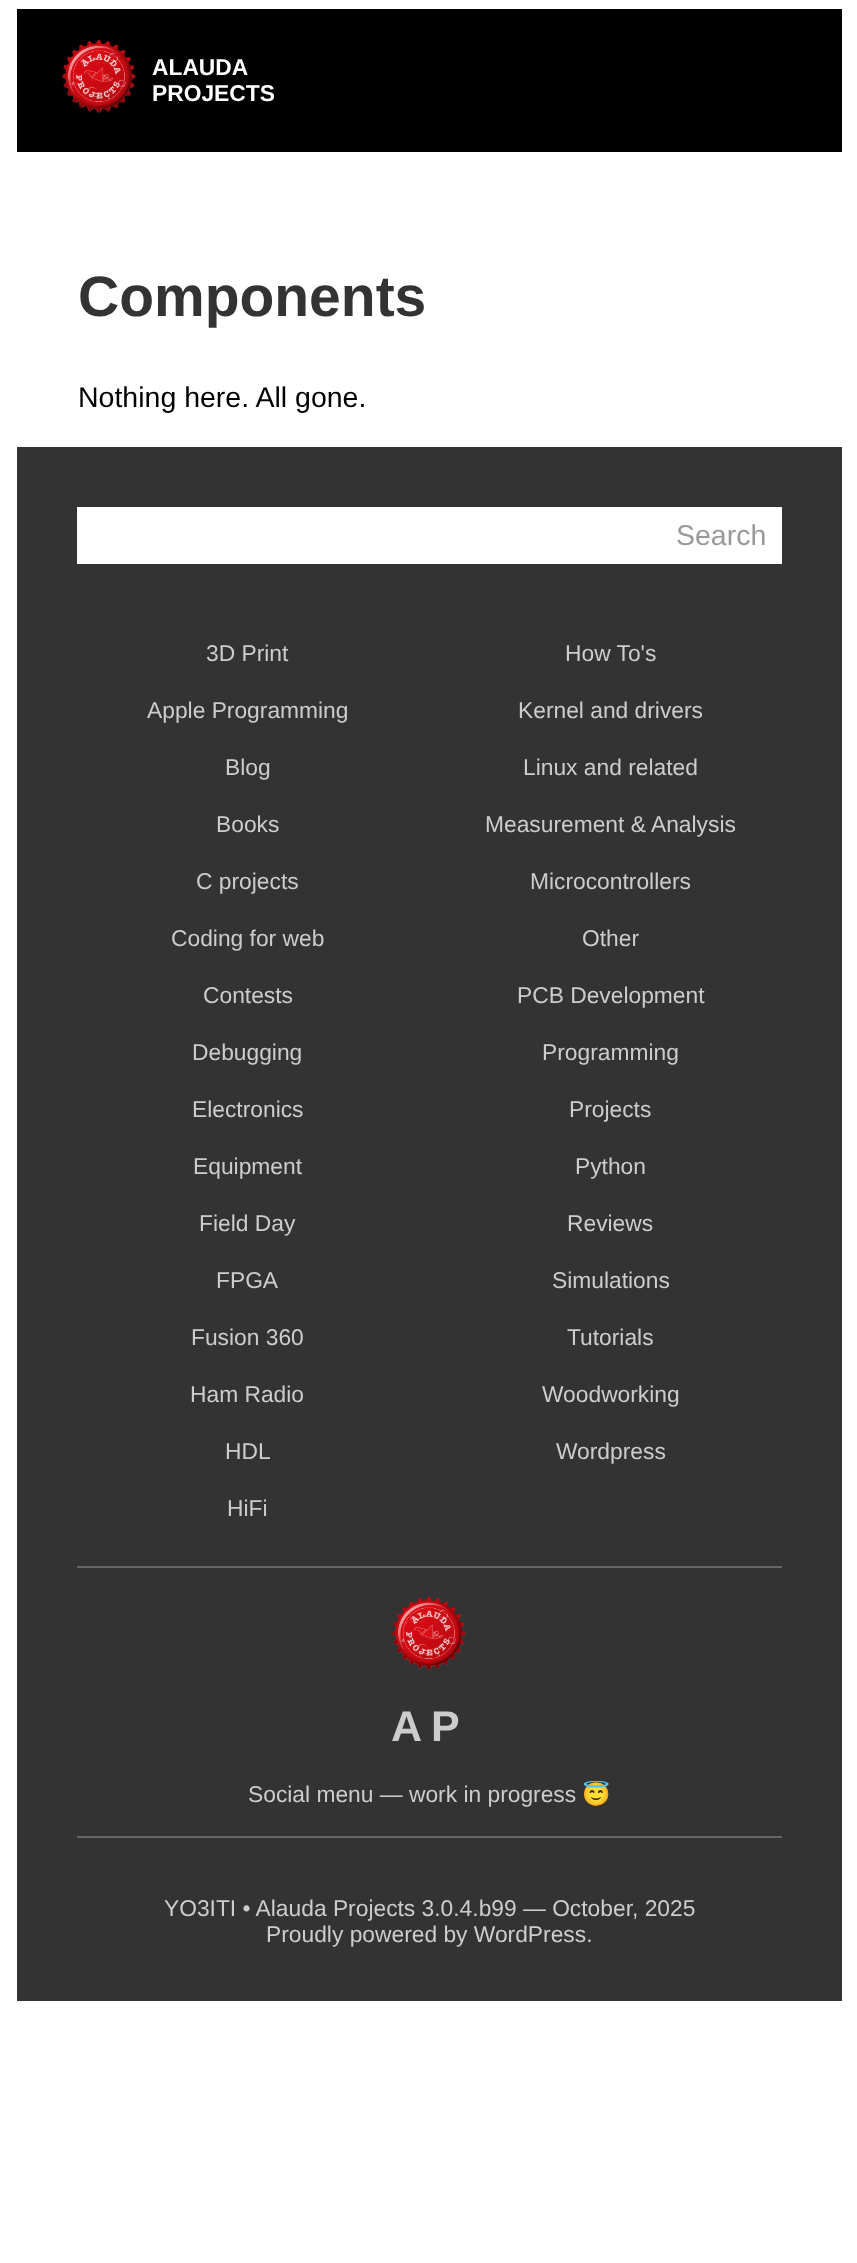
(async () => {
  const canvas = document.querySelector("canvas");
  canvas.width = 857;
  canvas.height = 2263;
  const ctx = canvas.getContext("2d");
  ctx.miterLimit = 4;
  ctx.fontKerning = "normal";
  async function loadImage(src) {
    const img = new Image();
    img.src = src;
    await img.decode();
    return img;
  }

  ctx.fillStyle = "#ffffff";
  ctx.fillRect(0, 0, 857, 2263);
  ctx.fillStyle = "#000000";
  ctx.fillRect(17, 9, 825, 143);
  ctx.drawImage(await loadImage("img/1.png"), 62, 40, 74, 73);
  for (const [x, y, w, h, color] of [
    [17, 447, 825, 1554, "#333333"],
    [77, 507, 705, 57, "#ffffff"],
    [77, 1566, 705, 2, "#666666"],
    [77, 1836, 705, 2, "#666666"],
  ]) {
    ctx.fillStyle = color;
    ctx.fillRect(x, y, w, h);
  }
  ctx.drawImage(await loadImage("img/2.png"), 392, 1597, 74, 73);
  ctx.font = "bold 22.8px Liberation Sans";
  ctx.fillStyle = "#ffffff";
  ctx.fillText("ALAUDA", 152, 75);
  ctx.fillText("PROJECTS", 152, 101);
  ctx.font = "bold 57px Liberation Sans";
  ctx.fillStyle = "#333333";
  ctx.fillText("Components", 78, 316);
  ctx.font = "28.5px Liberation Sans";
  ctx.fillStyle = "#000000";
  ctx.fillText("Nothing here. All gone.", 78, 407);
  ctx.fillStyle = "#999999";
  ctx.fillText("Search", 676, 545);
  ctx.font = "22.8px Liberation Sans";
  ctx.fillStyle = "#cccccc";
  for (const [text, x, y] of [
    ["3D Print", 206, 661],
    ["How To's", 565, 661],
    ["Apple Programming", 147, 718],
    ["Kernel and drivers", 518, 718],
    ["Blog", 225, 775],
    ["Linux and related", 523, 775],
    ["Books", 216, 832],
    ["Measurement & Analysis", 485, 832],
    ["C projects", 196, 889],
    ["Microcontrollers", 530, 889],
    ["Coding for web", 171, 946],
    ["Other", 582, 946],
    ["Contests", 203, 1003],
    ["PCB Development", 517, 1003],
    ["Debugging", 192, 1060],
    ["Programming", 542, 1060],
    ["Electronics", 192, 1117],
    ["Projects", 569, 1117],
    ["Equipment", 193, 1174],
    ["Python", 575, 1174],
    ["Field Day", 199, 1231],
    ["Reviews", 567, 1231],
    ["FPGA", 216, 1288],
    ["Simulations", 552, 1288],
    ["Fusion 360", 191, 1345],
    ["Tutorials", 567, 1345],
    ["Ham Radio", 190, 1402],
    ["Woodworking", 542, 1402],
    ["HDL", 225, 1459],
    ["Wordpress", 556, 1459],
    ["HiFi", 227, 1516],
  ]) {
    ctx.fillText(text, x, y);
  }
  ctx.letterSpacing = "9px";
  ctx.font = "bold 43px Liberation Sans";
  ctx.fillText("AP", 391, 1741);
  ctx.letterSpacing = "0px";
  ctx.font = "22.8px Liberation Sans";
  ctx.fillText("Social menu — work in progress", 248, 1802);
  ctx.font = "22.8px Noto Color Emoji";
  ctx.fillText("😇", 582, 1802);
  ctx.font = "22.8px Liberation Sans";
  ctx.fillText("YO3ITI • Alauda Projects 3.0.4.b99 — October, 2025", 164, 1916);
  ctx.fillText("Proudly powered by WordPress.", 266, 1942);
})();
